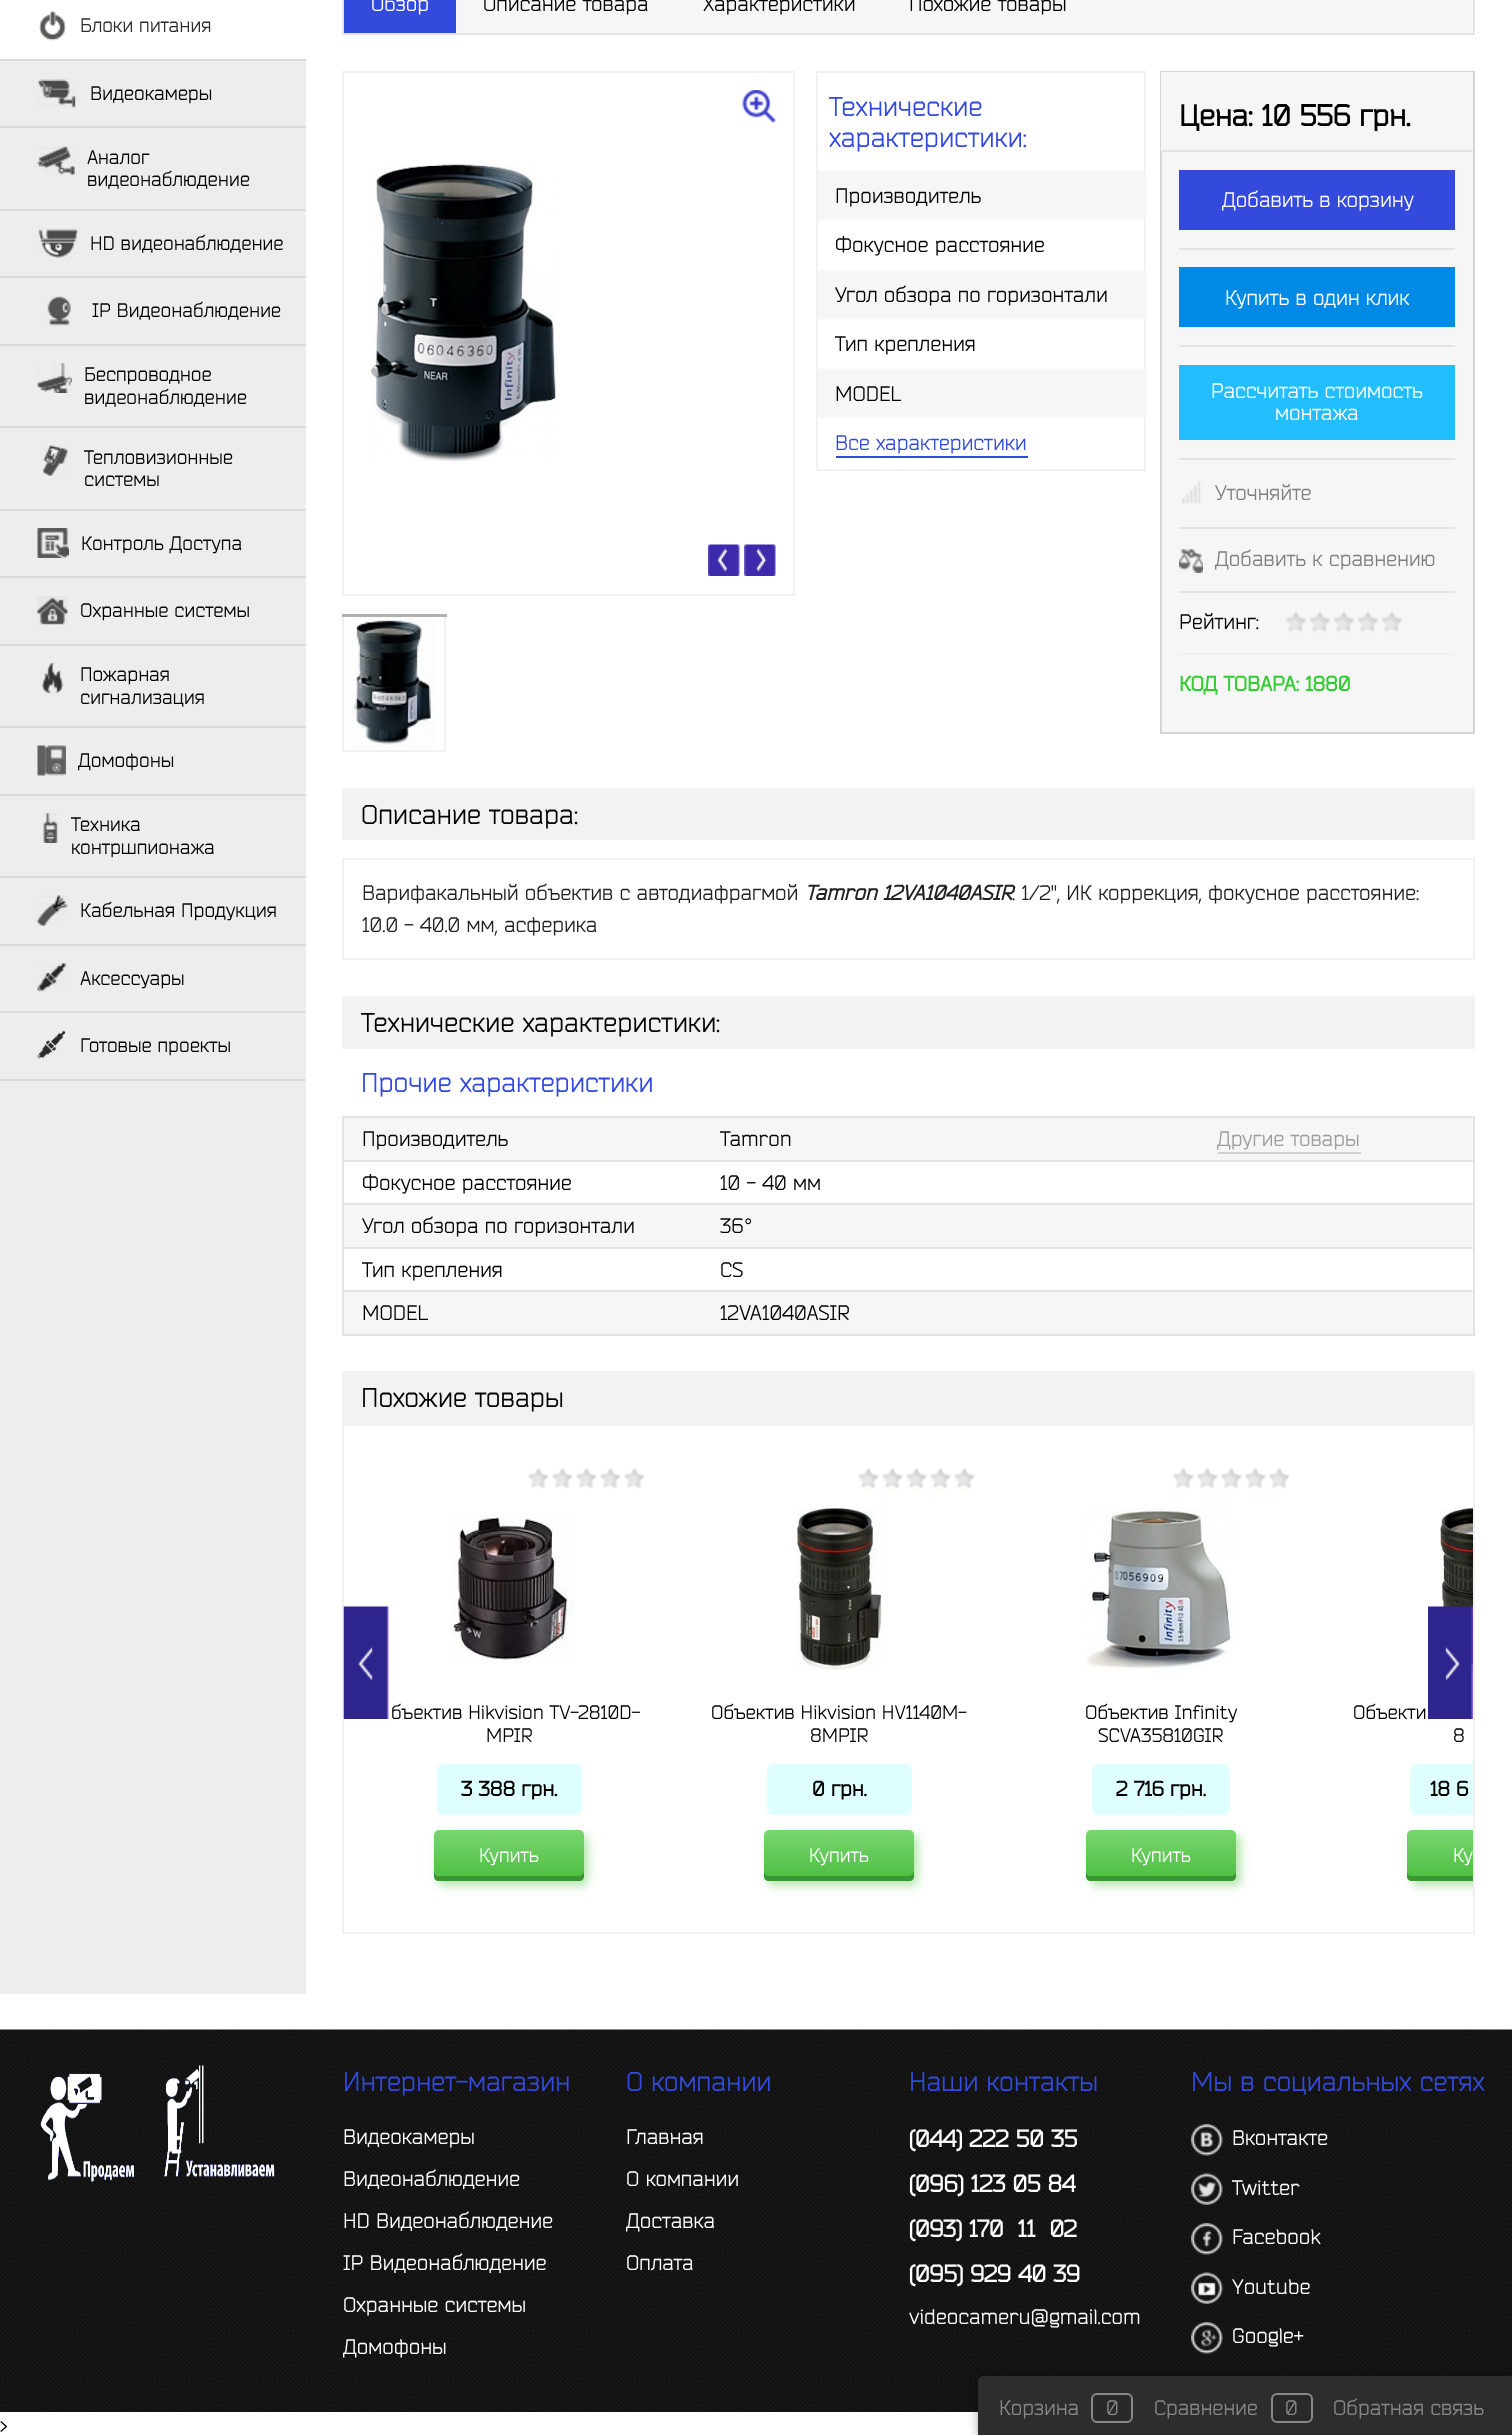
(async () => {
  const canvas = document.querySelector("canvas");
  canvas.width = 1512;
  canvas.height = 2435;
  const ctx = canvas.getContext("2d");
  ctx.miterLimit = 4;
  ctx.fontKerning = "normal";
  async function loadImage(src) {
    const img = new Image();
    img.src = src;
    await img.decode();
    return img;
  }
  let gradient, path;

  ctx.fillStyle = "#ffffff";
  ctx.fillRect(0, 0, 1512, 2435);
  ctx.fillStyle = "#ededed";
  ctx.fillRect(0, 61, 306, 1933);
  ctx.fillStyle = "#dbdbdb";
  ctx.fillRect(0, 59, 306, 2);
  ctx.drawImage(await loadImage("img/1.png"), 39, 10, 28, 31);
  ctx.fillRect(0, 126, 306, 2);
  ctx.drawImage(await loadImage("img/2.png"), 37, 79, 39, 29);
  ctx.fillRect(0, 209, 306, 2);
  ctx.drawImage(await loadImage("img/3.png"), 37, 146, 38, 30);
  ctx.fillRect(0, 276, 306, 2);
  ctx.drawImage(await loadImage("img/4.png"), 38, 229, 40, 29);
  ctx.fillRect(0, 344, 306, 2);
  ctx.drawImage(await loadImage("img/5.png"), 47, 296, 24, 30);
  ctx.fillRect(0, 426, 306, 2);
  ctx.drawImage(await loadImage("img/6.png"), 37, 363, 35, 30);
  ctx.fillRect(0, 509, 306, 2);
  ctx.drawImage(await loadImage("img/7.png"), 42, 445, 26, 31);
  ctx.fillRect(0, 576, 306, 2);
  ctx.drawImage(await loadImage("img/8.png"), 37, 528, 32, 30);
  ctx.fillRect(0, 644, 306, 2);
  ctx.drawImage(await loadImage("img/9.png"), 37, 596, 31, 29);
  ctx.fillRect(0, 726, 306, 2);
  ctx.drawImage(await loadImage("img/10.png"), 41, 663, 23, 30);
  ctx.fillRect(0, 794, 306, 2);
  ctx.drawImage(await loadImage("img/11.png"), 37, 745, 29, 31);
  ctx.fillRect(0, 876, 306, 2);
  ctx.drawImage(await loadImage("img/12.png"), 43, 813, 15, 30);
  ctx.fillRect(0, 944, 306, 2);
  ctx.drawImage(await loadImage("img/13.png"), 37, 895, 31, 31);
  ctx.fillRect(0, 1011, 306, 2);
  ctx.drawImage(await loadImage("img/14.png"), 37, 963, 30, 29);
  ctx.fillRect(0, 1079, 306, 2);
  ctx.drawImage(await loadImage("img/15.png"), 37, 1030, 29, 29);
  ctx.fillStyle = "#f6f6f6";
  ctx.fillRect(456, 0, 1017, 33);
  ctx.strokeStyle = "#e4e4e4";
  ctx.lineWidth = 2;
  ctx.strokeRect(343, -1, 1131, 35);
  ctx.fillStyle = "#334add";
  ctx.fillRect(344, 0, 112, 33);
  ctx.strokeStyle = "#f1f1f1";
  ctx.strokeRect(343, 72, 451, 523);
  ctx.drawImage(await loadImage("img/16.png"), 371, 164, 186, 298);
  ctx.drawImage(await loadImage("img/17.png"), 708, 544, 32, 32);
  ctx.drawImage(await loadImage("img/18.png"), 744, 544, 32, 32);
  ctx.drawImage(await loadImage("img/19.png"), 742, 90, 34, 33);
  ctx.strokeRect(343, 615, 102, 136);
  ctx.drawImage(await loadImage("img/20.png"), 351, 617, 86, 131);
  ctx.fillStyle = "#b1b1b1";
  ctx.fillRect(342, 614, 105, 3);
  ctx.strokeRect(817, 72, 328, 398);
  for (const [x, y, w, h, color] of [
    [818, 171, 327, 48, "#f6f6f6"],
    [818, 219, 327, 2, "#fbfbfb"],
    [818, 269, 327, 2, "#fbfbfb"],
    [818, 271, 327, 47, "#f6f6f6"],
    [818, 318, 327, 2, "#fbfbfb"],
    [818, 368, 327, 2, "#fbfbfb"],
    [818, 370, 327, 47, "#f6f6f6"],
    [818, 417, 327, 2, "#fbfbfb"],
    [836, 456, 192, 2, "#334add"],
    [1162, 152, 311, 580, "#f6f6f6"],
  ]) {
    ctx.fillStyle = color;
    ctx.fillRect(x, y, w, h);
  }
  ctx.strokeStyle = "#d5d5d5";
  ctx.strokeRect(1161, 72, 313, 661);
  for (const [x, y, w, h, color] of [
    [1161, 72, 312, 78, "#f6f6f6"],
    [1161, 150, 312, 2, "#e4e4e4"],
    [1179, 248, 276, 2, "#e4e4e4"],
    [1179, 170, 276, 60, "#334add"],
    [1179, 345, 276, 2, "#e4e4e4"],
    [1179, 267, 276, 60, "#008ae6"],
    [1179, 458, 276, 2, "#e4e4e4"],
    [1179, 365, 276, 75, "#22beff"],
  ]) {
    ctx.fillStyle = color;
    ctx.fillRect(x, y, w, h);
  }
  ctx.drawImage(await loadImage("img/21.png"), 1182, 481, 19, 23);
  ctx.fillStyle = "#e4e4e4";
  ctx.fillRect(1179, 527, 276, 2);
  ctx.fillRect(1179, 591, 276, 2);
  ctx.drawImage(await loadImage("img/22.png"), 1179, 549, 24, 24);
  ctx.fillStyle = "#f1f1f1";
  ctx.fillRect(1179, 653, 276, 2);
  ctx.drawImage(await loadImage("img/23.png"), 1285, 611, 117, 22);
  ctx.fillStyle = "#f2f2f2";
  ctx.fillRect(342, 788, 1133, 52);
  ctx.strokeStyle = "#f1f1f1";
  ctx.strokeRect(343, 859, 1131, 100);
  for (const [x, y, w, h, color] of [
    [342, 996, 1133, 53, "#f2f2f2"],
    [342, 1116, 1133, 2, "#e4e4e4"],
    [342, 1160, 1133, 2, "#e4e4e4"],
    [342, 1203, 1133, 2, "#e4e4e4"],
    [342, 1247, 1133, 2, "#e4e4e4"],
    [342, 1290, 1133, 2, "#e4e4e4"],
    [1473, 1290, 2, 45, "#e4e4e4"],
    [1473, 1247, 2, 45, "#e4e4e4"],
    [1473, 1203, 2, 45, "#e4e4e4"],
    [1473, 1160, 2, 45, "#e4e4e4"],
    [1473, 1116, 2, 45, "#e4e4e4"],
    [342, 1334, 1133, 2, "#e4e4e4"],
    [342, 1290, 2, 45, "#e4e4e4"],
    [342, 1247, 2, 45, "#e4e4e4"],
    [342, 1203, 2, 45, "#e4e4e4"],
    [342, 1160, 2, 45, "#e4e4e4"],
    [342, 1116, 2, 45, "#e4e4e4"],
    [344, 1118, 1129, 42, "#f6f6f6"],
    [1218, 1152, 143, 2, "#d0d0d0"],
    [344, 1205, 1129, 42, "#f6f6f6"],
    [344, 1292, 1129, 42, "#f6f6f6"],
    [342, 1371, 1133, 53, "#f2f2f2"],
  ]) {
    ctx.fillStyle = color;
    ctx.fillRect(x, y, w, h);
  }
  ctx.strokeRect(343, 1425, 1131, 508);
  ctx.drawImage(await loadImage("img/24.png"), 343, 1606, 46, 113);
  ctx.drawImage(await loadImage("img/32.png"), 1440, 1507, 33, 163);
  ctx.drawImage(await loadImage("img/25.png"), 1428, 1606, 45, 113);
  ctx.drawImage(await loadImage("img/26.png"), 528, 1468, 117, 22);
  ctx.drawImage(await loadImage("img/27.png"), 451, 1514, 124, 149);
  ctx.fillStyle = "#dfffff";
  ctx.beginPath();
  ctx.roundRect(437, 1764, 145, 51, 6);
  ctx.fill();
  ctx.fillStyle = "rgba(105, 206, 95, 0.5)";
  ctx.filter = "blur(5px)";
  ctx.beginPath();
  ctx.roundRect(438, 1835, 150, 51, 5);
  ctx.fill();
  ctx.filter = "none";
  gradient = ctx.createLinearGradient(509, 1830, 509, 1881);
  gradient.addColorStop(0, "#79d670");
  gradient.addColorStop(1, "#4bbe3f");
  ctx.fillStyle = gradient;
  ctx.beginPath();
  ctx.roundRect(434, 1830, 150, 51, 5);
  ctx.fill();
  ctx.fillStyle = "#3a9731";
  path = new Path2D("M434 1872V1876C434 1879 436 1881 439 1881H579C582 1881 584 1879 584 1876V1872L583 1874L580 1876H438C436 1876 434 1874 434 1872Z");
  ctx.fill(path);
  ctx.drawImage(await loadImage("img/28.png"), 858, 1468, 117, 22);
  ctx.drawImage(await loadImage("img/29.png"), 796, 1507, 86, 163);
  ctx.fillStyle = "#dfffff";
  ctx.beginPath();
  ctx.roundRect(767, 1764, 145, 51, 6);
  ctx.fill();
  ctx.fillStyle = "rgba(105, 206, 95, 0.5)";
  ctx.filter = "blur(5px)";
  ctx.beginPath();
  ctx.roundRect(768, 1835, 150, 51, 5);
  ctx.fill();
  ctx.filter = "none";
  gradient = ctx.createLinearGradient(839, 1830, 839, 1881);
  gradient.addColorStop(0, "#79d670");
  gradient.addColorStop(1, "#4bbe3f");
  ctx.fillStyle = gradient;
  ctx.beginPath();
  ctx.roundRect(764, 1830, 150, 51, 5);
  ctx.fill();
  ctx.fillStyle = "#3a9731";
  path = new Path2D("M764 1872V1876C764 1879 766 1881 769 1881H909C912 1881 914 1879 914 1876V1872L913 1874L910 1876H768C766 1876 764 1874 764 1872Z");
  ctx.fill(path);
  ctx.drawImage(await loadImage("img/30.png"), 1173, 1468, 117, 22);
  ctx.drawImage(await loadImage("img/31.png"), 1086, 1508, 148, 161);
  ctx.fillStyle = "#dfffff";
  ctx.beginPath();
  ctx.roundRect(1092, 1764, 138, 51, 6);
  ctx.fill();
  ctx.fillStyle = "rgba(105, 206, 95, 0.5)";
  ctx.filter = "blur(5px)";
  ctx.beginPath();
  ctx.roundRect(1091, 1835, 150, 51, 5);
  ctx.fill();
  ctx.filter = "none";
  gradient = ctx.createLinearGradient(1161, 1830, 1161, 1881);
  gradient.addColorStop(0, "#79d670");
  gradient.addColorStop(1, "#4bbe3f");
  ctx.fillStyle = gradient;
  ctx.beginPath();
  ctx.roundRect(1086, 1830, 150, 51, 5);
  ctx.fill();
  ctx.fillStyle = "#3a9731";
  path = new Path2D("M1086 1872V1876C1086 1879 1088 1881 1091 1881H1231C1234 1881 1236 1879 1236 1876V1872C1236 1874 1234 1876 1232 1876H1090C1088 1876 1086 1874 1086 1872Z");
  ctx.fill(path);
  ctx.fillStyle = "#dfffff";
  ctx.beginPath();
  ctx.roundRect(1410, 1764, 63, 51, [6, 0, 0, 6]);
  ctx.fill();
  ctx.save();
  ctx.beginPath();
  ctx.rect(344, 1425, 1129, 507);
  ctx.clip();
  ctx.fillStyle = "rgba(105, 206, 95, 0.5)";
  ctx.filter = "blur(5px)";
  ctx.beginPath();
  ctx.roundRect(1412, 1835, 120, 51, 5);
  ctx.fill();
  ctx.filter = "none";
  ctx.restore();
  gradient = ctx.createLinearGradient(1482, 1830, 1482, 1881);
  gradient.addColorStop(0, "#79d670");
  gradient.addColorStop(1, "#4bbe3f");
  ctx.fillStyle = gradient;
  ctx.beginPath();
  ctx.roundRect(1407, 1830, 66, 51, [5, 0, 0, 5]);
  ctx.fill();
  ctx.save();
  ctx.beginPath();
  ctx.rect(344, 1425, 1129, 507);
  ctx.clip();
  ctx.fillStyle = "#3a9731";
  path = new Path2D("M1407 1872V1876C1407 1879 1409 1881 1412 1881H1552C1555 1881 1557 1879 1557 1876V1872C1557 1874 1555 1876 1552 1876H1412C1409 1876 1407 1874 1407 1872Z");
  ctx.fill(path);
  ctx.restore();
  ctx.drawImage(await loadImage("img/33.png"), 0, 2029, 1512, 383);
  ctx.drawImage(await loadImage("img/34.png"), 40, 2065, 235, 117);
  ctx.drawImage(await loadImage("img/35.png"), 1191, 2124, 32, 32);
  ctx.drawImage(await loadImage("img/36.png"), 1191, 2173, 32, 32);
  ctx.drawImage(await loadImage("img/37.png"), 1191, 2223, 32, 32);
  ctx.drawImage(await loadImage("img/38.png"), 1191, 2272, 32, 32);
  ctx.drawImage(await loadImage("img/39.png"), 1191, 2322, 32, 32);
  ctx.fillStyle = "rgba(0, 0, 0, 0.5)";
  ctx.filter = "blur(6px)";
  ctx.beginPath();
  ctx.roundRect(980, 2378, 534, 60, 6);
  ctx.fill();
  ctx.filter = "none";
  ctx.fillStyle = "#2d2d2d";
  path = new Path2D("M984 2376H1512V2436H978V2382C978 2378.5 980.5 2376 984 2376Z");
  ctx.fill(path);
  ctx.fillStyle = "#292929";
  ctx.fillRect(1092, 2393, 39, 29);
  ctx.beginPath();
  ctx.roundRect(1092, 2394, 40, 28, 5);
  ctx.strokeStyle = "#888888";
  ctx.stroke();
  ctx.fillRect(1272, 2393, 39, 29);
  ctx.beginPath();
  ctx.roundRect(1272, 2394, 40, 28, 5);
  ctx.stroke();
  ctx.font = "19.5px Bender";
  ctx.fillStyle = "#2d2d2d";
  ctx.fillText("Блоки питания", 80, 32);
  ctx.fillStyle = "#000000";
  for (const [text, x, y] of [
    ["Видеокамеры", 90, 100],
    ["Аналог", 87, 164],
    ["видеонаблюдение", 87, 186],
    ["HD видеонаблюдение", 90, 250],
    ["IP Видеонаблюдение", 92, 317],
    ["Беспроводное", 84, 381],
    ["видеонаблюдение", 84, 404],
    ["Тепловизионные", 84, 464],
    ["системы", 84, 486],
    ["Контроль Доступа", 81, 550],
    ["Охранные системы", 80, 617],
    ["Пожарная", 80, 681],
    ["сигнализация", 80, 704],
    ["Домофоны", 78, 767],
    ["Техника", 71, 831],
    ["контршпионажа", 71, 854],
    ["Кабельная Продукция", 80, 917],
    ["Аксессуары", 80, 985],
    ["Готовые проекты", 80, 1052],
  ]) {
    ctx.fillText(text, x, y);
  }
  ctx.font = "21px Bender";
  ctx.fillStyle = "#ffffff";
  ctx.fillText("Обзор", 371, 11);
  ctx.fillStyle = "#000000";
  for (const [text, x, y] of [
    ["Описание товара", 483, 11],
    ["Характеристики", 703, 11],
    ["Похожие товары", 909, 11],
  ]) {
    ctx.fillText(text, x, y);
  }
  ctx.font = "27px Bender";
  ctx.fillStyle = "#334add";
  ctx.fillText("Технические", 829, 116);
  ctx.fillText("характеристики:", 829, 147);
  ctx.font = "21px Bender";
  ctx.fillStyle = "#000000";
  for (const [text, x, y] of [
    ["Производитель", 835, 203],
    ["Фокусное расстояние", 835, 252],
    ["Угол обзора по горизонтали", 835, 302],
    ["Тип крепления", 835, 351],
    ["MODEL", 835, 401],
  ]) {
    ctx.fillText(text, x, y);
  }
  ctx.fillStyle = "#334add";
  ctx.fillText("Все характеристики", 835, 450);
  ctx.font = "bold 30px Bender";
  ctx.fillStyle = "#000000";
  ctx.fillText("Цена: 10 556 грн.", 1179, 126);
  ctx.font = "21px Bender";
  ctx.fillStyle = "#ffffff";
  for (const [text, x, y] of [
    ["Добавить в корзину", 1222, 207],
    ["Купить в один клик", 1225, 305],
    ["Рассчитать стоимость", 1211, 398],
    ["монтажа", 1275, 420],
  ]) {
    ctx.fillText(text, x, y);
  }
  ctx.fillStyle = "#7f7f7f";
  ctx.fillText("Уточняйте", 1215, 500);
  ctx.fillText("Добавить к сравнению", 1215, 566);
  ctx.fillStyle = "#000000";
  ctx.fillText("Рейтинг:", 1179, 629);
  ctx.font = "bold 21px Bender";
  ctx.fillStyle = "#32cd32";
  ctx.fillText("КОД ТОВАРА: 1880", 1179, 691);
  ctx.font = "27px Bender";
  ctx.fillStyle = "#000000";
  ctx.fillText("Описание товара:", 361, 824);
  ctx.font = "21px Bender";
  ctx.fillStyle = "#222222";
  ctx.fillText("Варифакальный объектив c автодиафрагмой", 362, 900);
  ctx.font = "italic bold 21px Bender";
  ctx.fillText("Tamron 12VA1040ASIR", 805, 900);
  ctx.font = "21px Bender";
  ctx.fillText(": 1/2\", ИК коррекция, фокусное расстояние:", 1012, 900);
  ctx.fillText("10.0 - 40.0 мм, асферика", 362, 932);
  ctx.font = "27px Bender";
  ctx.fillStyle = "#000000";
  ctx.fillText("Технические характеристики:", 361, 1032);
  ctx.fillStyle = "#334add";
  ctx.fillText("Прочие характеристики", 361, 1092);
  ctx.font = "21px Bender";
  ctx.fillStyle = "#000000";
  ctx.fillText("Производитель", 362, 1146);
  ctx.fillText("Tamron", 720, 1146);
  ctx.fillStyle = "#9d9d9d";
  ctx.fillText("Другие товары", 1217, 1146);
  ctx.fillStyle = "#000000";
  for (const [text, x, y] of [
    ["Фокусное расстояние", 362, 1190],
    ["10 - 40 мм", 720, 1190],
    ["Угол обзора по горизонтали", 362, 1233],
    ["36", 720, 1233],
  ]) {
    ctx.fillText(text, x, y);
  }
  ctx.font = "21px Liberation Sans";
  ctx.fillText("°", 744, 1233);
  ctx.font = "21px Bender";
  for (const [text, x, y] of [
    ["Тип крепления", 362, 1277],
    ["CS", 720, 1277],
    ["MODEL", 362, 1320],
    ["12VA1040ASIR", 720, 1320],
  ]) {
    ctx.fillText(text, x, y);
  }
  ctx.font = "27px Bender";
  ctx.fillText("Похожие товары", 361, 1407);
  ctx.font = "19.5px Bender";
  ctx.fillText("бъектив Hikvision TV-2810D-", 391, 1719);
  ctx.fillText("MPIR", 486, 1742);
  ctx.font = "bold 21px Bender";
  ctx.fillText("3 388 грн.", 461, 1796);
  ctx.font = "19.5px Bender";
  ctx.fillStyle = "#ffffff";
  ctx.fillText("Купить", 479, 1862);
  ctx.fillStyle = "#000000";
  ctx.fillText("Объектив Hikvision HV1140M-", 711, 1719);
  ctx.fillText("8MPIR", 810, 1742);
  ctx.font = "bold 21px Bender";
  ctx.fillText("0 грн.", 812, 1796);
  ctx.font = "19.5px Bender";
  ctx.fillStyle = "#ffffff";
  ctx.fillText("Купить", 809, 1862);
  ctx.fillStyle = "#000000";
  ctx.fillText("Объектив Infinity", 1085, 1719);
  ctx.fillText("SCVA35810GIR", 1098, 1742);
  ctx.font = "bold 21px Bender";
  ctx.fillText("2 716 грн.", 1116, 1796);
  ctx.font = "19.5px Bender";
  ctx.fillStyle = "#ffffff";
  ctx.fillText("Купить", 1131, 1862);
  ctx.fillStyle = "#000000";
  ctx.fillText("Объекти", 1353, 1719);
  ctx.fillText("8", 1453, 1742);
  ctx.font = "bold 21px Bender";
  ctx.fillText("18 6", 1430, 1796);
  ctx.font = "19.5px Bender";
  ctx.fillStyle = "#ffffff";
  ctx.fillText("Ку", 1453, 1862);
  ctx.font = "27px Bender";
  ctx.fillStyle = "#334add";
  ctx.fillText("Интернет-магазин", 343, 2091);
  ctx.font = "21px Bender";
  ctx.fillStyle = "#ffffff";
  for (const [text, x, y] of [
    ["Видеокамеры", 343, 2144],
    ["Видеонаблюдение", 343, 2186],
    ["HD Видеонаблюдение", 343, 2228],
    ["IP Видеонаблюдение", 343, 2270],
    ["Охранные системы", 343, 2312],
    ["Домофоны", 343, 2354],
  ]) {
    ctx.fillText(text, x, y);
  }
  ctx.font = "27px Bender";
  ctx.fillStyle = "#334add";
  ctx.fillText("О компании", 626, 2091);
  ctx.font = "21px Bender";
  ctx.fillStyle = "#ffffff";
  for (const [text, x, y] of [
    ["Главная", 626, 2144],
    ["О компании", 626, 2186],
    ["Доставка", 626, 2228],
    ["Оплата", 626, 2270],
  ]) {
    ctx.fillText(text, x, y);
  }
  ctx.font = "27px Bender";
  ctx.fillStyle = "#334add";
  ctx.fillText("Наши контакты", 909, 2091);
  ctx.font = "bold 24px Bender";
  ctx.fillStyle = "#ffffff";
  for (const [text, x, y] of [
    ["(044) 222 50 35", 909, 2147],
    ["(096) 123 05 84", 909, 2192],
    ["(093) 170  11  02", 909, 2237],
    ["(095) 929 40 39", 909, 2282],
  ]) {
    ctx.fillText(text, x, y);
  }
  ctx.font = "21px Bender";
  ctx.fillText("videocameru@gmail.com", 909, 2324);
  ctx.font = "27px Bender";
  ctx.fillStyle = "#334add";
  ctx.fillText("Мы в cоциальных сетях", 1191, 2091);
  ctx.font = "21px Bender";
  ctx.fillStyle = "#ffffff";
  for (const [text, x, y] of [
    ["Вконтакте", 1232, 2145],
    ["Twitter", 1232, 2195],
    ["Facebook", 1232, 2244],
    ["Youtube", 1232, 2294],
    ["Google+", 1232, 2343],
  ]) {
    ctx.fillText(text, x, y);
  }
  ctx.fillStyle = "#888888";
  for (const [text, x, y] of [
    ["Корзина", 999, 2415],
    ["0", 1106, 2415],
    ["Сравнение", 1154, 2415],
    ["0", 1285, 2415],
    ["Обратная связь", 1333, 2415],
  ]) {
    ctx.fillText(text, x, y);
  }
  ctx.fillStyle = "#000000";
  ctx.fillText(">", 0, 2432);
})();
